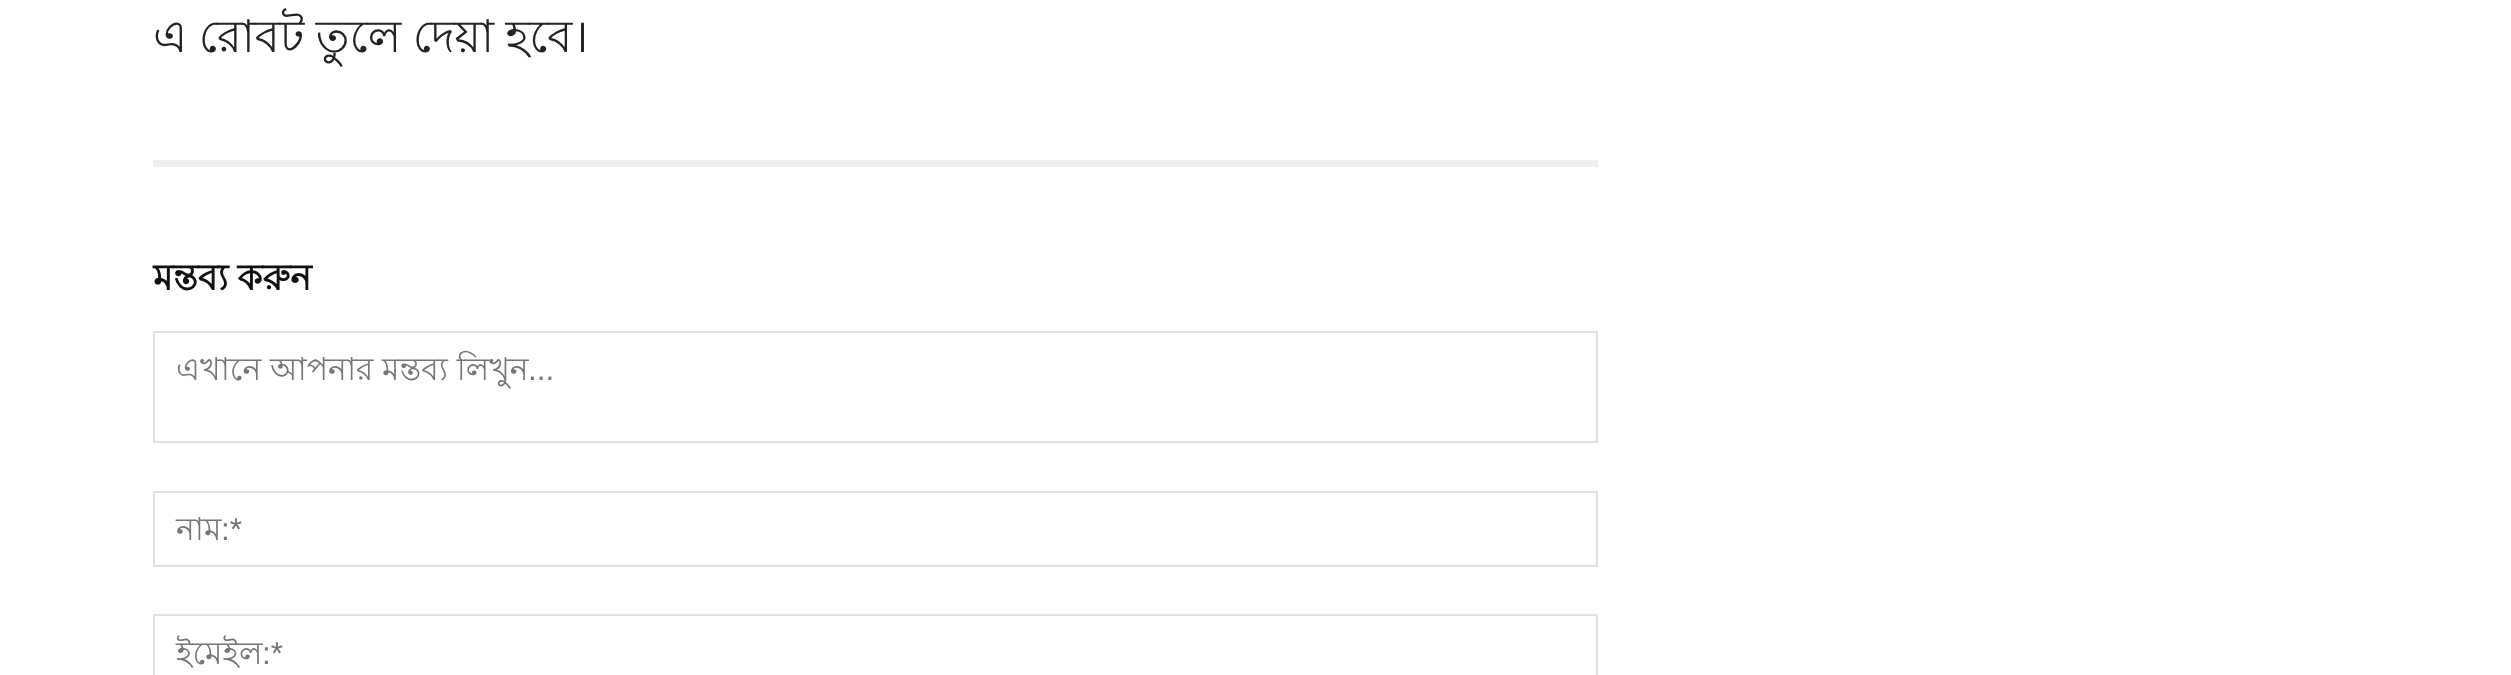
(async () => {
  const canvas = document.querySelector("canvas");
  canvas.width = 2511;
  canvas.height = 675;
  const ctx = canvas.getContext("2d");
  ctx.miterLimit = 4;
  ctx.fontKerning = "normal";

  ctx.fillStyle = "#ffffff";
  ctx.fillRect(0, 0, 2511, 675);
  ctx.fillStyle = "#eeeeee";
  ctx.fillRect(153, 160, 1445, 7);
  ctx.strokeStyle = "#e1e1e1";
  ctx.lineWidth = 2;
  ctx.strokeRect(154, 332, 1443, 110);
  ctx.strokeRect(154, 492, 1443, 74);
  ctx.strokeRect(154, 615, 1443, 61);
  ctx.wordSpacing = "-1px";
  ctx.font = "45px Lohit Bengali";
  ctx.fillStyle = "#222222";
  ctx.fillText("এ রোবট তুলে দেয়া হবে।", 153, 52);
  ctx.font = "bold 36px Lohit Bengali";
  ctx.fillStyle = "#111111";
  ctx.fillText("মন্তব্য করুন", 153, 290);
  ctx.wordSpacing = "0px";
  ctx.font = "31.5px Lohit Bengali";
  ctx.fillStyle = "#757575";
  ctx.fillText("এখানে আপনার মন্তব্য লিখুন", 176, 380);
  ctx.font = "31.5px Liberation Sans";
  ctx.fillText("...", 528, 380);
  ctx.font = "31.5px Lohit Bengali";
  ctx.fillText("নাম", 176, 540);
  ctx.font = "31.5px Liberation Sans";
  ctx.fillText(":*", 221, 540);
  ctx.font = "31.5px Lohit Bengali";
  ctx.fillText("ইমেইল", 176, 664);
  ctx.font = "31.5px Liberation Sans";
  ctx.fillText(":*", 262, 664);
})();
